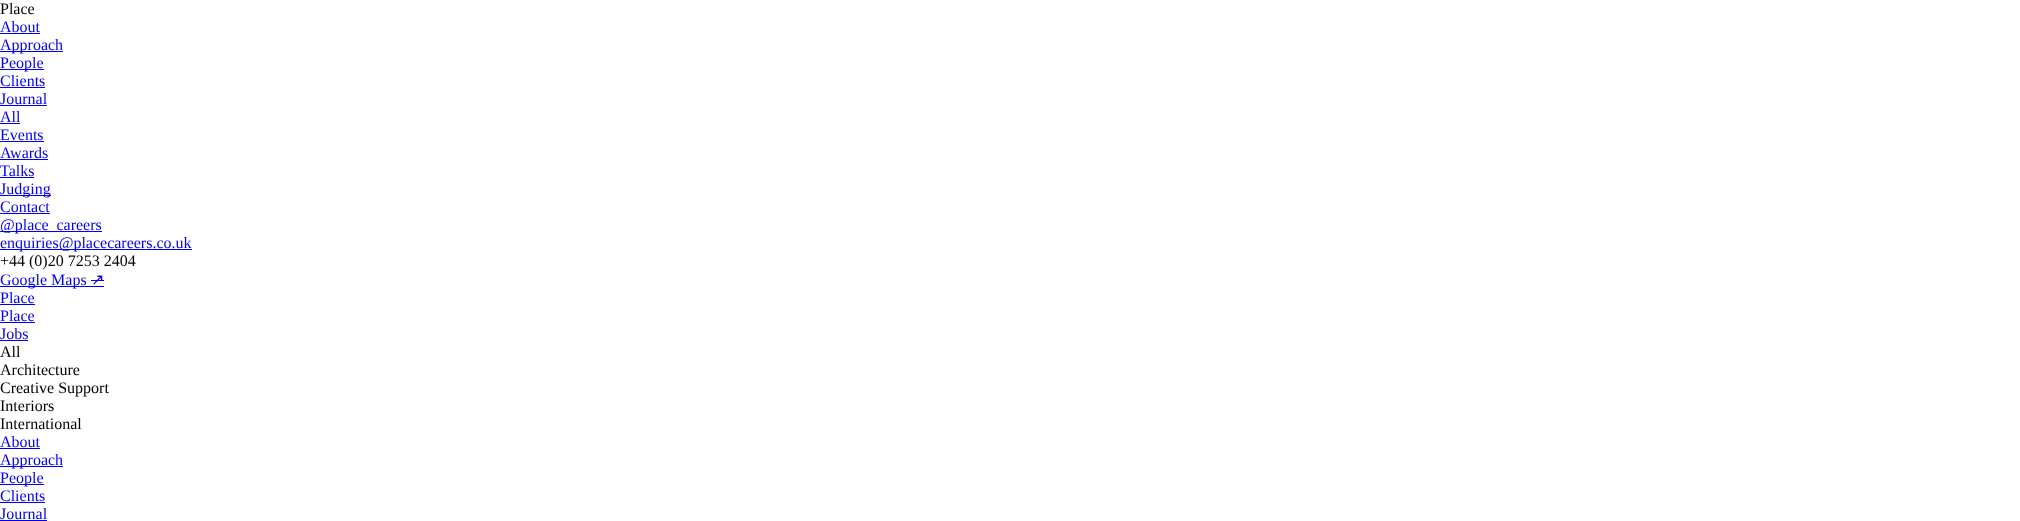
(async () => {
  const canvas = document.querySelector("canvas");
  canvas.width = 2020;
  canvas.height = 521;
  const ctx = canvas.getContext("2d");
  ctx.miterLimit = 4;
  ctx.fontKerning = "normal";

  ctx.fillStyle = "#ffffff";
  ctx.fillRect(0, 0, 2020, 521);
  for (const [x, y, w, h, color] of [
    [0, 33, 40, 1, "#0000ee"],
    [0, 51, 63, 1, "#0000ee"],
    [0, 69, 44, 1, "#0000ee"],
    [0, 87, 45, 1, "#0000ee"],
    [0, 105, 47, 1, "#0000ee"],
    [0, 123, 20, 1, "#0000ee"],
    [0, 141, 44, 1, "#0000ee"],
    [0, 159, 48, 1, "#0000ee"],
    [0, 177, 34, 1, "#0000ee"],
    [0, 195, 51, 1, "#0000ee"],
    [0, 213, 50, 1, "#0000ee"],
    [0, 231, 102, 1, "#0000ee"],
    [0, 249, 192, 1, "#0000ee"],
    [0, 286, 104, 1, "#0000ee"],
    [91, 280, 13, 1, "#0000ee"],
    [0, 304, 35, 1, "#0000ee"],
    [0, 322, 35, 1, "#0000ee"],
    [0, 340, 28, 1, "#0000ee"],
    [0, 448, 40, 1, "#0000ee"],
    [0, 466, 63, 1, "#0000ee"],
    [0, 484, 44, 1, "#0000ee"],
    [0, 502, 45, 1, "#0000ee"],
    [0, 520, 47, 1, "#0000ee"],
  ]) {
    ctx.fillStyle = color;
    ctx.fillRect(x, y, w, h);
  }
  ctx.font = "16px Liberation Serif";
  ctx.fillStyle = "#000000";
  ctx.fillText("Place", 0, 14);
  ctx.fillStyle = "#0000ee";
  for (const [text, x, y] of [
    ["About", 0, 32],
    ["Approach", 0, 50],
    ["People", 0, 68],
    ["Clients", 0, 86],
    ["Journal", 0, 104],
    ["All", 0, 122],
    ["Events", 0, 140],
    ["Awards", 0, 158],
    ["Talks", 0, 176],
    ["Judging", 0, 194],
    ["Contact", 0, 212],
    ["@place_careers", 0, 230],
    ["enquiries@placecareers.co.uk", 0, 248],
  ]) {
    ctx.fillText(text, x, y);
  }
  ctx.fillStyle = "#000000";
  ctx.fillText("+44 (0)20 7253 2404", 0, 266);
  ctx.fillStyle = "#0000ee";
  ctx.fillText("Google Maps", 0, 285);
  ctx.font = "16px DejaVu Sans";
  ctx.fillText("↗", 91, 285);
  ctx.font = "16px Liberation Serif";
  for (const [text, x, y] of [
    ["Place", 0, 303],
    ["Place", 0, 321],
    ["Jobs", 0, 339],
  ]) {
    ctx.fillText(text, x, y);
  }
  ctx.fillStyle = "#000000";
  for (const [text, x, y] of [
    ["All", 0, 357],
    ["Architecture", 0, 375],
    ["Creative Support", 0, 393],
    ["Interiors", 0, 411],
    ["International", 0, 429],
  ]) {
    ctx.fillText(text, x, y);
  }
  ctx.fillStyle = "#0000ee";
  for (const [text, x, y] of [
    ["About", 0, 447],
    ["Approach", 0, 465],
    ["People", 0, 483],
    ["Clients", 0, 501],
    ["Journal", 0, 519],
  ]) {
    ctx.fillText(text, x, y);
  }
})();
